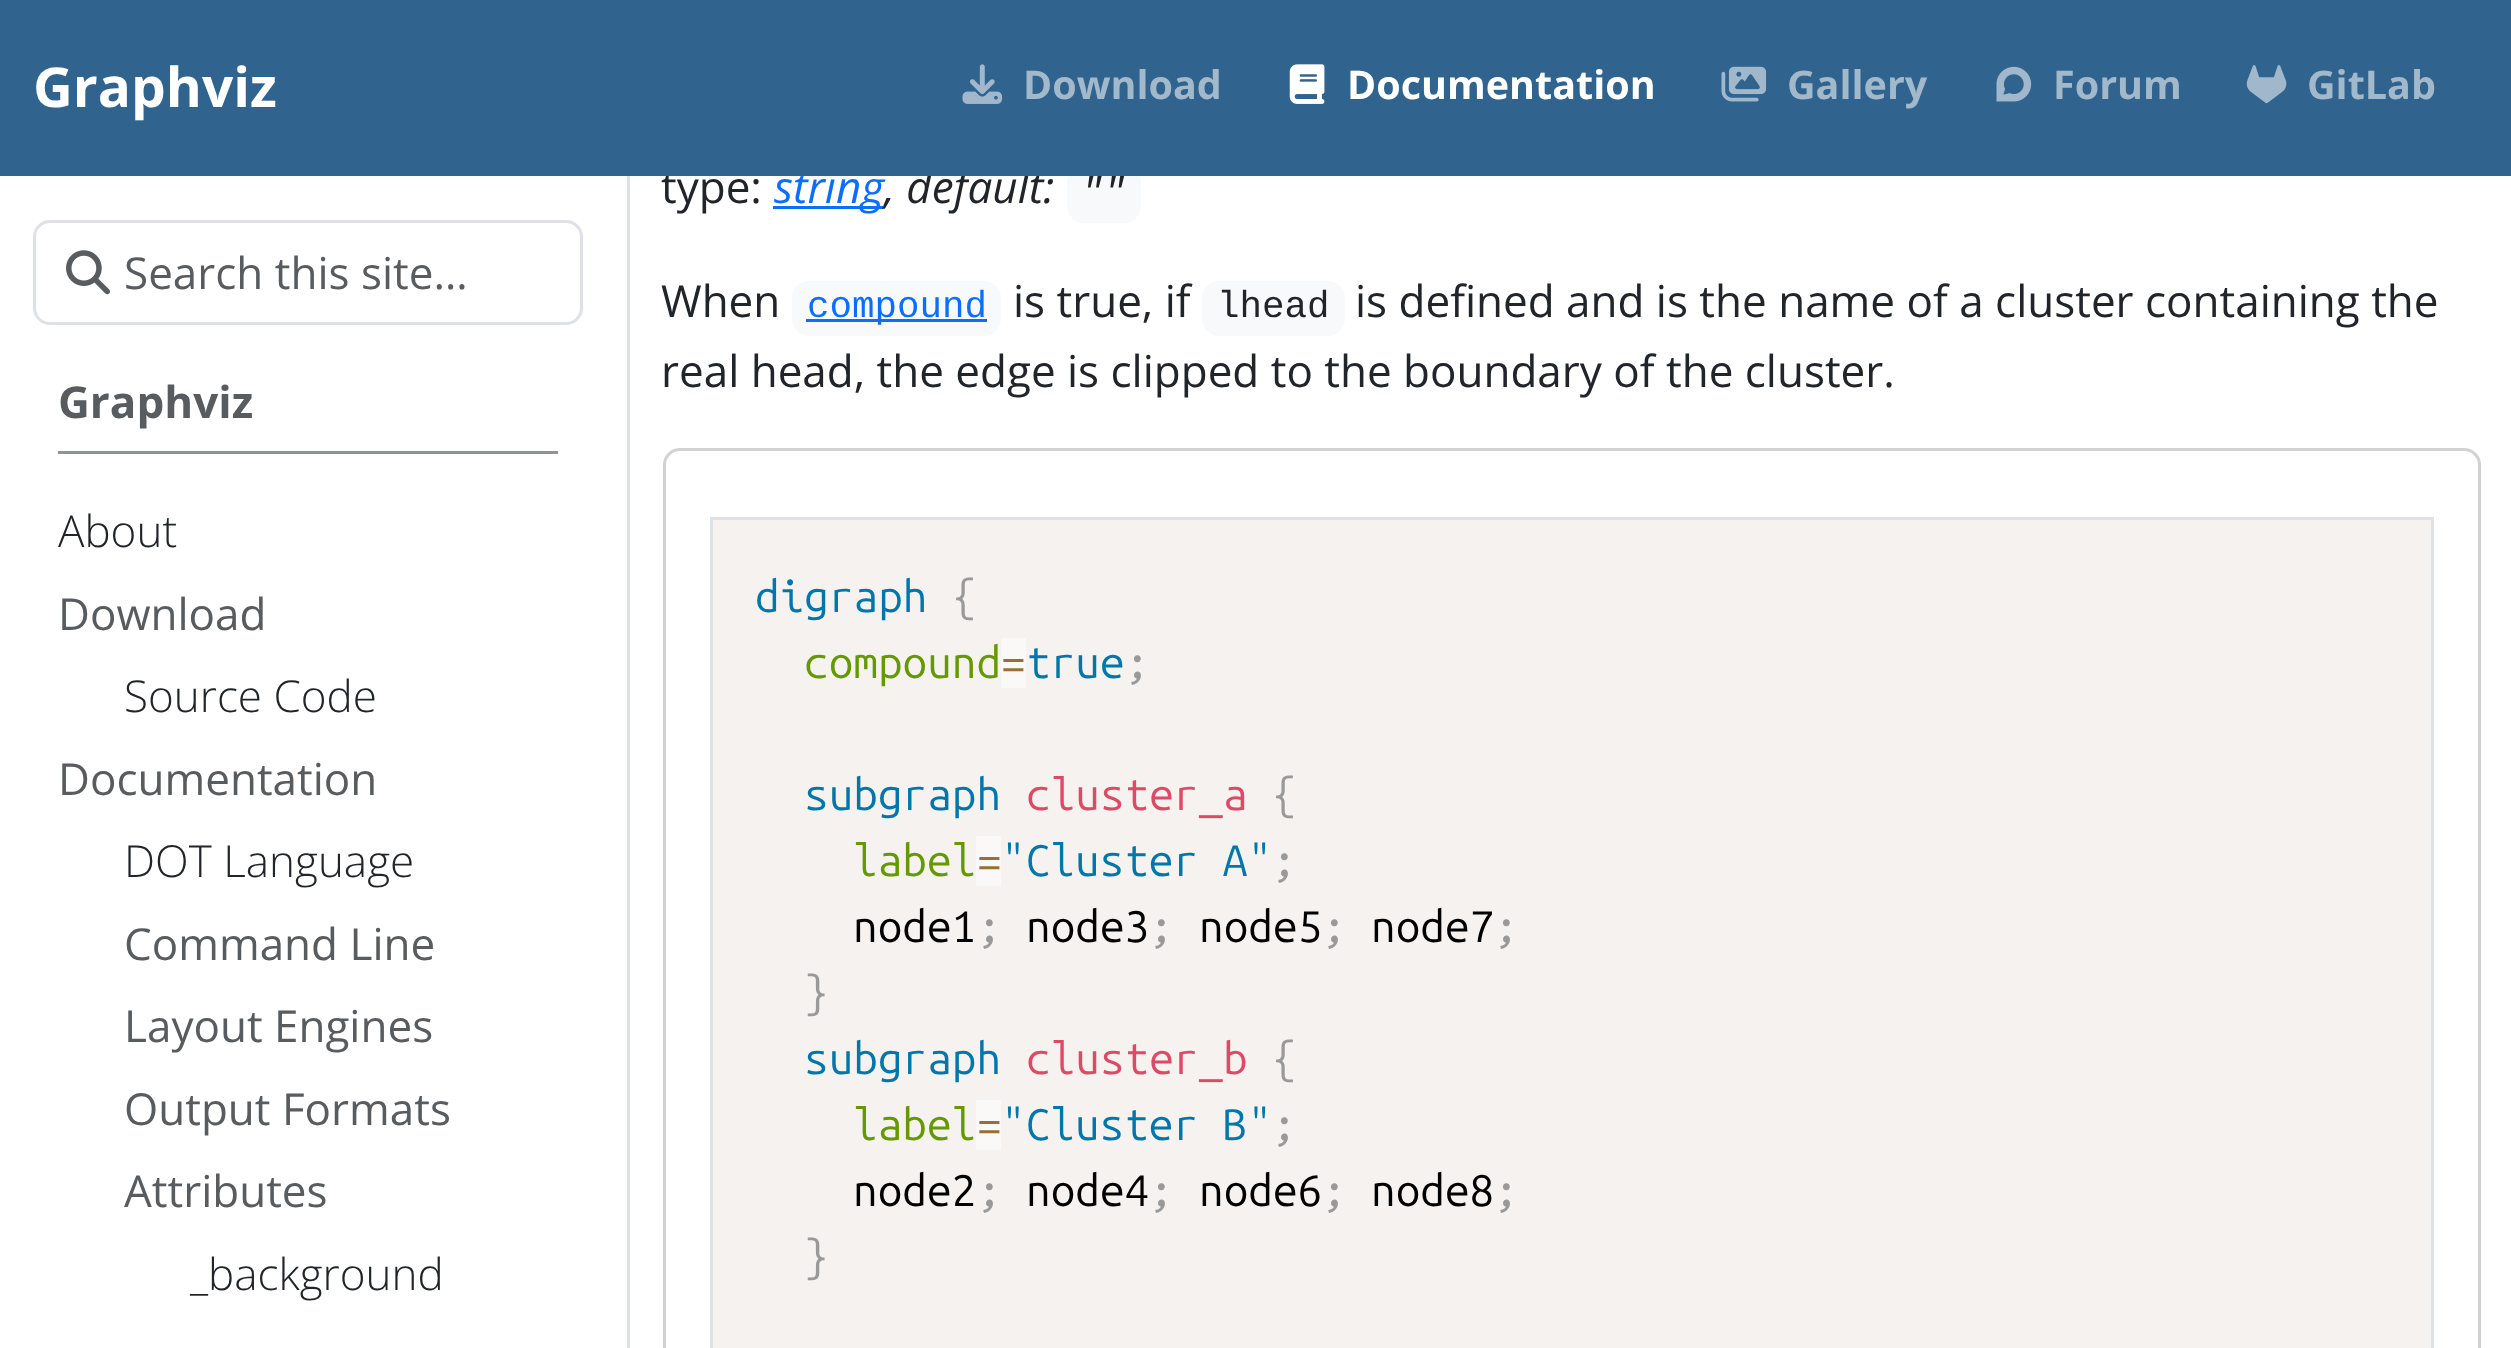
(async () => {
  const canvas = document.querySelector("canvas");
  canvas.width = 2511;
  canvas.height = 1348;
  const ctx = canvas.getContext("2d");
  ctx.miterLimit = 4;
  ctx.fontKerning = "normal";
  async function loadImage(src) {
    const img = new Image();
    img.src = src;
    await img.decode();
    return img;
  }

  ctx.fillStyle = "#ffffff";
  ctx.fillRect(0, 0, 2511, 1348);
  ctx.fillStyle = "#dee2e6";
  ctx.fillRect(627, 176, 3, 1172);
  ctx.beginPath();
  ctx.roundRect(34.5, 221.5, 547, 102, 15.5);
  ctx.strokeStyle = "#dee2e6";
  ctx.lineWidth = 3;
  ctx.stroke();
  ctx.drawImage(await loadImage("img/6.png"), 66, 250, 44, 45);
  ctx.fillStyle = "#909294";
  ctx.fillRect(58, 451, 500, 3);
  ctx.fillStyle = "#0d6efd";
  ctx.fillRect(773, 206, 110, 3);
  ctx.fillStyle = "#f8f9fa";
  ctx.beginPath();
  ctx.roundRect(1067, 165, 74, 58, 17);
  ctx.fill();
  ctx.beginPath();
  ctx.roundRect(792, 281, 209, 55, 17);
  ctx.fill();
  ctx.fillStyle = "#0d6efd";
  ctx.fillRect(806, 319, 181, 3);
  ctx.fillStyle = "#f8f9fa";
  ctx.beginPath();
  ctx.roundRect(1202, 281, 143, 55, 17);
  ctx.fill();
  ctx.beginPath();
  ctx.roundRect(664.5, 449.5, 1815, 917, 15.5);
  ctx.strokeStyle = "#d2d2d2";
  ctx.stroke();
  ctx.fillStyle = "#f5f2f0";
  ctx.beginPath();
  ctx.rect(711.5, 518.5, 1721, 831);
  ctx.fill();
  ctx.strokeStyle = "#dee2e6";
  ctx.stroke();
  for (const [x, y, w, h, color] of [
    [1001, 638, 25, 50, "#faf9f8"],
    [976, 836, 25, 50, "#faf9f8"],
    [976, 1100, 25, 50, "#faf9f8"],
  ]) {
    ctx.fillStyle = color;
    ctx.fillRect(x, y, w, h);
  }
  ctx.font = "44px Open Sans";
  ctx.fillStyle = "#595c5f";
  ctx.fillText("Search this site…", 124, 289);
  ctx.font = "bold 44px Open Sans";
  ctx.fillText("Graphviz", 58, 418);
  ctx.font = "300 44px Open Sans";
  ctx.fillStyle = "#212529";
  ctx.fillText("About", 58, 547);
  ctx.font = "44px Open Sans";
  ctx.fillStyle = "#595c5f";
  ctx.fillText("Download", 58, 630);
  ctx.font = "300 44px Open Sans";
  ctx.fillStyle = "#212529";
  ctx.fillText("Source Code", 124, 712);
  ctx.font = "44px Open Sans";
  ctx.fillStyle = "#595c5f";
  ctx.fillText("Documentation", 58, 795);
  ctx.font = "300 44px Open Sans";
  ctx.fillStyle = "#212529";
  ctx.fillText("DOT Language", 124, 877);
  ctx.font = "44px Open Sans";
  ctx.fillStyle = "#595c5f";
  for (const [text, x, y] of [
    ["Command Line", 124, 960],
    ["Layout Engines", 124, 1042],
    ["Output Formats", 124, 1125],
    ["Attributes", 124, 1207],
  ]) {
    ctx.fillText(text, x, y);
  }
  ctx.font = "300 44px Open Sans";
  ctx.fillStyle = "#212529";
  ctx.fillText("_background", 190, 1290);
  ctx.font = "44px Open Sans";
  ctx.fillText("type:", 661, 203);
  ctx.font = "italic 44px Open Sans";
  ctx.fillStyle = "#0d6efd";
  ctx.fillText("string", 774, 203);
  ctx.fillStyle = "#212529";
  ctx.fillText(", default:", 884, 203);
  ctx.font = "italic 37.5px Liberation Mono";
  ctx.fillText("\"\"", 1081, 203);
  ctx.fillStyle = "#30638e";
  ctx.fillRect(0, 0, 2511, 176);
  ctx.font = "bold 39.5px Open Sans";
  ctx.fillStyle = "#a2b9cc";
  ctx.fillText("GitLab", 2307, 99);
  ctx.drawImage(await loadImage("img/5.png"), 2246, 65, 41, 39);
  ctx.fillText("Forum", 2053, 99);
  ctx.drawImage(await loadImage("img/4.png"), 1996, 66, 36, 36);
  ctx.fillText("Gallery", 1787, 99);
  ctx.drawImage(await loadImage("img/3.png"), 1721, 66, 46, 36);
  ctx.fillStyle = "#ffffff";
  ctx.fillText("Documentation", 1347, 99);
  ctx.drawImage(await loadImage("img/2.png"), 1289, 64, 36, 40);
  ctx.fillStyle = "#a2b9cc";
  ctx.fillText("Download", 1023, 99);
  ctx.drawImage(await loadImage("img/1.png"), 962, 64, 41, 40);
  ctx.font = "bold 55px Open Sans";
  ctx.fillStyle = "#ffffff";
  ctx.fillText("Graphviz", 33, 107);
  ctx.font = "44px Open Sans";
  ctx.fillStyle = "#212529";
  ctx.fillText("When", 661, 317);
  ctx.font = "37.5px Liberation Mono";
  ctx.fillStyle = "#0d6efd";
  ctx.fillText("compound", 807, 317);
  ctx.font = "44px Open Sans";
  ctx.fillStyle = "#212529";
  ctx.fillText("is true, if", 1013, 317);
  ctx.font = "37.5px Liberation Mono";
  ctx.fillText("lhead", 1217, 317);
  ctx.font = "44px Open Sans";
  ctx.fillText("is defined and is the name of a cluster containing the", 1355, 317);
  ctx.fillText("real head, the edge is clipped to the boundary of the cluster.", 661, 387);
  ctx.font = "44px Ubuntu Mono";
  ctx.fillStyle = "#0077aa";
  ctx.fillText("digraph", 755, 612);
  ctx.fillStyle = "#999999";
  ctx.fillText("{", 952, 612);
  ctx.fillStyle = "#669900";
  ctx.fillText("compound", 804, 678);
  ctx.fillStyle = "#9a6e3a";
  ctx.fillText("=", 1001, 678);
  ctx.fillStyle = "#0077aa";
  ctx.fillText("true", 1026, 678);
  ctx.fillStyle = "#999999";
  ctx.fillText(";", 1125, 678);
  ctx.fillStyle = "#0077aa";
  ctx.fillText("subgraph", 804, 810);
  ctx.fillStyle = "#dd4a68";
  ctx.fillText("cluster_a", 1026, 810);
  ctx.fillStyle = "#999999";
  ctx.fillText("{", 1272, 810);
  ctx.fillStyle = "#669900";
  ctx.fillText("label", 853, 876);
  ctx.fillStyle = "#9a6e3a";
  ctx.fillText("=", 977, 876);
  ctx.fillStyle = "#0077aa";
  ctx.fillText("\"Cluster A\"", 1001, 876);
  ctx.fillStyle = "#999999";
  ctx.fillText(";", 1272, 876);
  ctx.fillStyle = "#000000";
  ctx.fillText("node1", 853, 942);
  ctx.fillStyle = "#999999";
  ctx.fillText(";", 977, 942);
  ctx.fillStyle = "#000000";
  ctx.fillText("node3", 1026, 942);
  ctx.fillStyle = "#999999";
  ctx.fillText(";", 1149, 942);
  ctx.fillStyle = "#000000";
  ctx.fillText("node5", 1199, 942);
  ctx.fillStyle = "#999999";
  ctx.fillText(";", 1322, 942);
  ctx.fillStyle = "#000000";
  ctx.fillText("node7", 1371, 942);
  ctx.fillStyle = "#999999";
  ctx.fillText(";", 1494, 942);
  ctx.fillText("}", 804, 1008);
  ctx.fillStyle = "#0077aa";
  ctx.fillText("subgraph", 804, 1074);
  ctx.fillStyle = "#dd4a68";
  ctx.fillText("cluster_b", 1026, 1074);
  ctx.fillStyle = "#999999";
  ctx.fillText("{", 1272, 1074);
  ctx.fillStyle = "#669900";
  ctx.fillText("label", 853, 1140);
  ctx.fillStyle = "#9a6e3a";
  ctx.fillText("=", 977, 1140);
  ctx.fillStyle = "#0077aa";
  ctx.fillText("\"Cluster B\"", 1001, 1140);
  ctx.fillStyle = "#999999";
  ctx.fillText(";", 1272, 1140);
  ctx.fillStyle = "#000000";
  ctx.fillText("node2", 853, 1206);
  ctx.fillStyle = "#999999";
  ctx.fillText(";", 977, 1206);
  ctx.fillStyle = "#000000";
  ctx.fillText("node4", 1026, 1206);
  ctx.fillStyle = "#999999";
  ctx.fillText(";", 1149, 1206);
  ctx.fillStyle = "#000000";
  ctx.fillText("node6", 1199, 1206);
  ctx.fillStyle = "#999999";
  ctx.fillText(";", 1322, 1206);
  ctx.fillStyle = "#000000";
  ctx.fillText("node8", 1371, 1206);
  ctx.fillStyle = "#999999";
  ctx.fillText(";", 1494, 1206);
  ctx.fillText("}", 804, 1272);
})();
